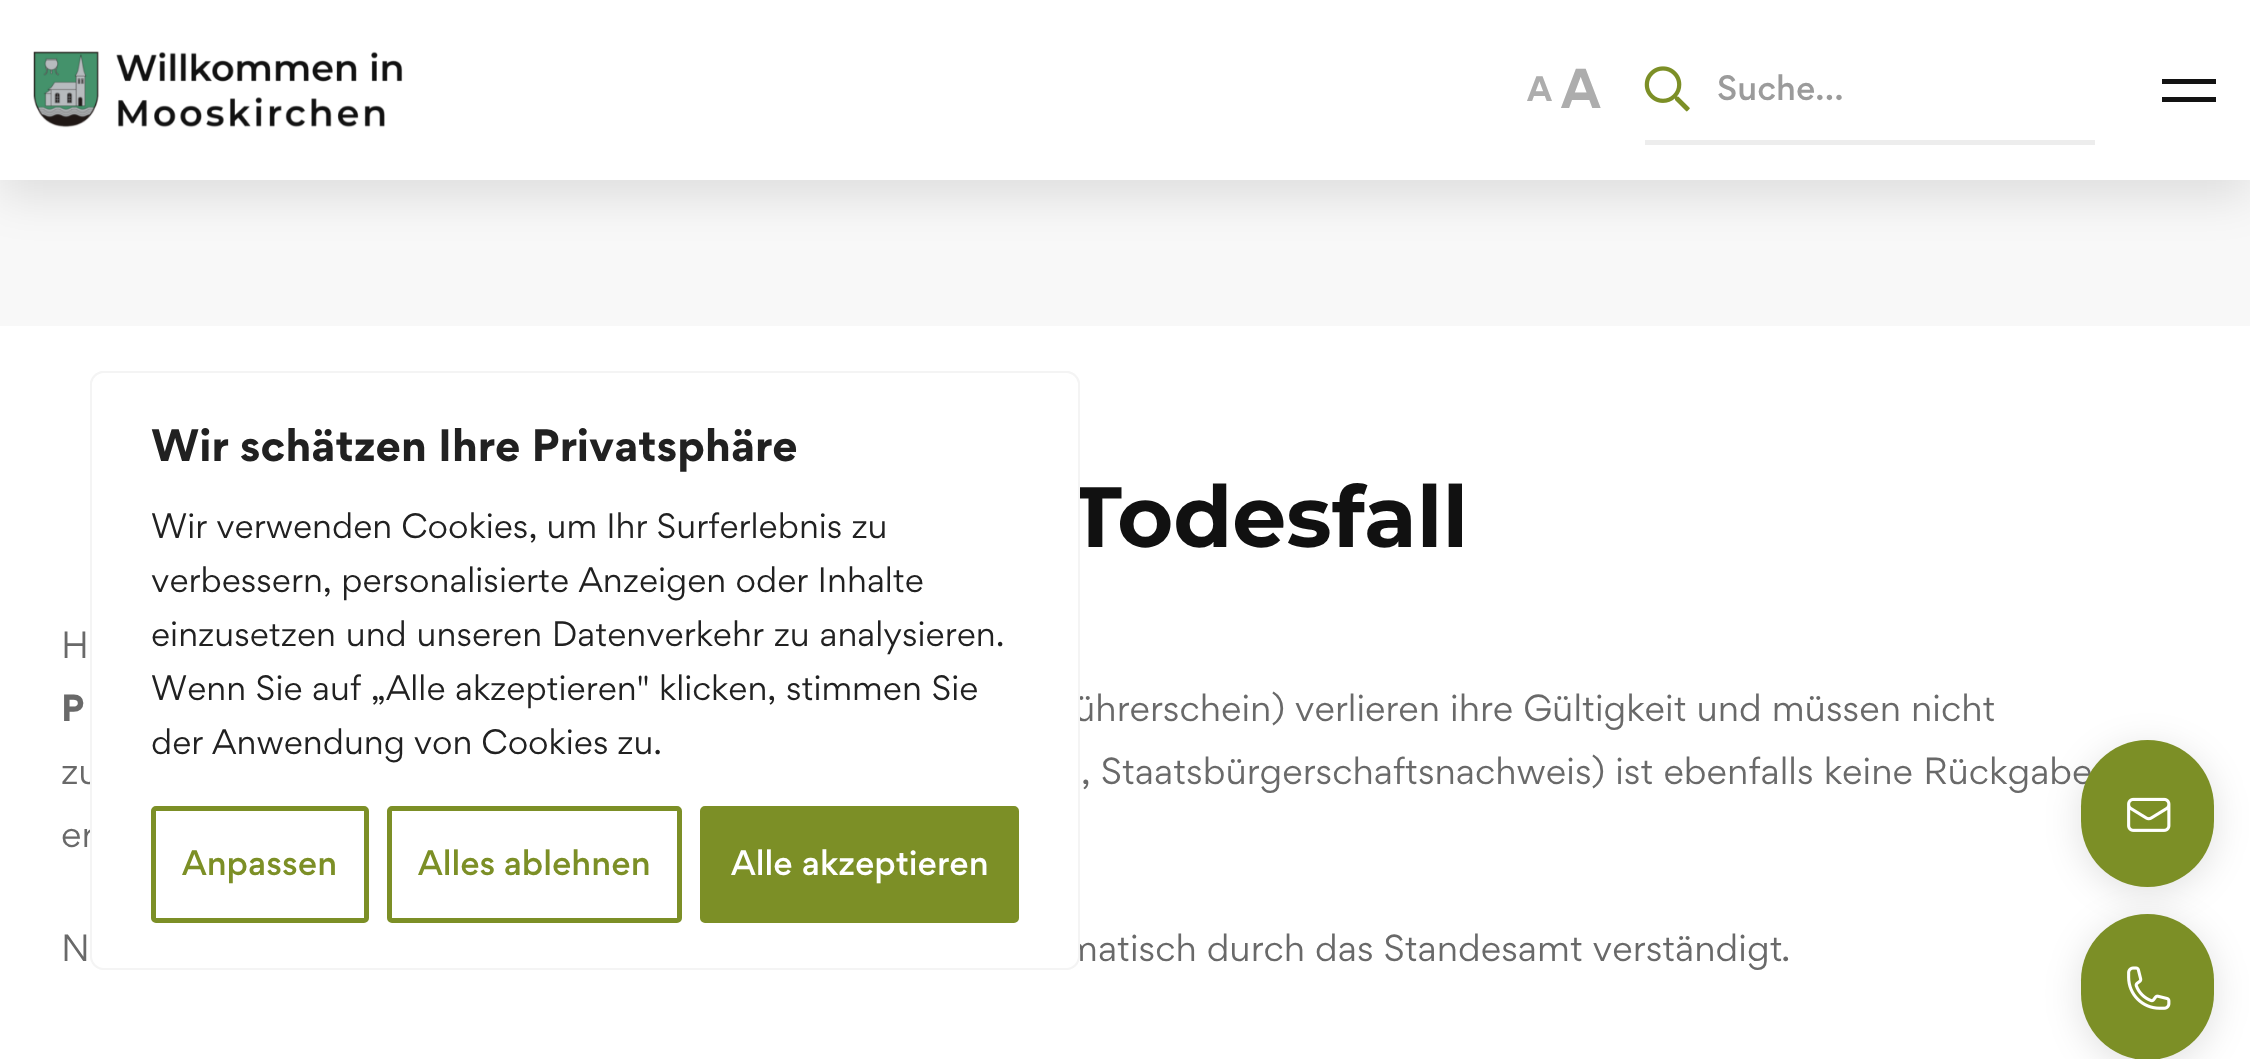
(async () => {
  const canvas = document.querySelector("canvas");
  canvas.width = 2250;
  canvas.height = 1059;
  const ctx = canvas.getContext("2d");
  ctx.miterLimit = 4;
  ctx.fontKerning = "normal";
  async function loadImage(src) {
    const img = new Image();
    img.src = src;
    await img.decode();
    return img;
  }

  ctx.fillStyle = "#ffffff";
  ctx.fillRect(0, 0, 2250, 1059);
  ctx.fillStyle = "#f8f8f8";
  ctx.fillRect(0, 180, 2250, 146);
  ctx.fillStyle = "rgba(0, 0, 0, 0.1)";
  ctx.filter = "blur(22.5px)";
  ctx.beginPath();
  ctx.rect(0, 18, 2250, 180);
  ctx.fill();
  ctx.filter = "none";
  ctx.fillStyle = "#ffffff";
  ctx.fillRect(0, 0, 2250, 180);
  ctx.drawImage(await loadImage("img/1.png"), 33, 51, 370, 77);
  ctx.drawImage(await loadImage("img/2.png"), 1644, 66, 46, 46);
  for (const [x, y, w, h, color] of [
    [1645, 140, 450, 5, "#ededed"],
    [2162, 79, 54, 5, "#131313"],
    [2162, 97, 54, 5, "#131313"],
  ]) {
    ctx.fillStyle = color;
    ctx.fillRect(x, y, w, h);
  }
  ctx.save();
  ctx.beginPath();
  ctx.roundRect(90, 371, 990, 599, 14);
  ctx.clip();
  ctx.fillStyle = "rgba(172, 171, 171, 0.3)";
  ctx.filter = "blur(11px)";
  ctx.beginPath();
  ctx.roundRect(90, 369, 990, 599, 14);
  ctx.fill();
  ctx.filter = "none";
  ctx.restore();
  ctx.fillStyle = "rgba(0, 0, 0, 0.12)";
  ctx.filter = "blur(18px)";
  ctx.beginPath();
  ctx.roundRect(2081, 747, 133, 146, 66.5);
  ctx.fill();
  ctx.filter = "none";
  ctx.font = "bold 31.5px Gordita";
  ctx.fillStyle = "#adadad";
  ctx.fillText("A", 1527, 101);
  ctx.font = "bold 50px Gordita";
  ctx.fillText("A", 1561, 108);
  ctx.font = "500 31.5px Gordita";
  ctx.fillStyle = "#9b9b9b";
  ctx.fillText("Suche…", 1717, 100);
  ctx.font = "bold 85.5px Montserrat";
  ctx.fillStyle = "#111111";
  ctx.fillText("Todesfall", 1069, 547);
  ctx.font = "33.75px Gordita";
  ctx.fillStyle = "#696969";
  ctx.fillText("H", 61, 658);
  ctx.wordSpacing = "1px";
  ctx.font = "bold 33.75px Gordita";
  ctx.fillText("P", 61, 721);
  ctx.wordSpacing = "0.5px";
  ctx.font = "33.75px Gordita";
  ctx.fillText("ührerschein) verlieren ihre Gültigkeit und müssen nicht", 1074, 721);
  ctx.wordSpacing = "0px";
  ctx.fillText("zu", 61, 784);
  ctx.wordSpacing = "0.75px";
  ctx.fillText(", Staatsbürgerschaftsnachweis) ist ebenfalls keine Rückgabe", 1081, 784);
  ctx.wordSpacing = "0px";
  ctx.fillText("er", 61, 847);
  ctx.wordSpacing = "1px";
  ctx.fillText("N", 61, 961);
  ctx.wordSpacing = "0.5px";
  ctx.fillText("matisch durch das Standesamt verständigt", 1065, 961);
  ctx.wordSpacing = "0px";
  ctx.fillText(".", 1781, 961);
  ctx.fillStyle = "#ffffff";
  ctx.beginPath();
  ctx.roundRect(91, 372, 988, 597, 13);
  ctx.fill();
  ctx.strokeStyle = "#f4f4f4";
  ctx.lineWidth = 2;
  ctx.stroke();
  ctx.wordSpacing = "1px";
  ctx.font = "bold 40.5px Gordita";
  ctx.fillStyle = "#212121";
  ctx.fillText("Wir schätzen Ihre Privatsphäre", 151, 461);
  ctx.wordSpacing = "0.25px";
  ctx.font = "31.5px Gordita";
  ctx.fillText("Wir verwenden Cookies, um Ihr Surferlebnis zu", 151, 538);
  ctx.wordSpacing = "0.5px";
  ctx.fillText("verbessern, personalisierte Anzeigen oder Inhalte", 151, 592);
  ctx.wordSpacing = "1px";
  ctx.fillText("einzusetzen und unseren Datenverkehr zu analysieren.", 151, 646);
  ctx.wordSpacing = "0.75px";
  ctx.fillText("Wenn Sie auf „Alle akzeptieren\" klicken, stimmen Sie", 151, 700);
  ctx.wordSpacing = "0px";
  ctx.fillText("der Anwendung von Cookies zu.", 151, 754);
  ctx.beginPath();
  ctx.roundRect(153.5, 808.5, 213, 112, 2.5);
  ctx.strokeStyle = "#7c8f26";
  ctx.lineWidth = 5;
  ctx.stroke();
  ctx.font = "500 31.5px Gordita";
  ctx.fillStyle = "#7c8f26";
  ctx.fillText("Anpassen", 182, 875);
  ctx.beginPath();
  ctx.roundRect(389.5, 808.5, 290, 112, 2.5);
  ctx.stroke();
  ctx.fillText("Alles ablehnen", 418, 875);
  ctx.beginPath();
  ctx.roundRect(702.5, 808.5, 314, 112, 2.5);
  ctx.fill();
  ctx.stroke();
  ctx.wordSpacing = "1px";
  ctx.fillStyle = "#ffffff";
  ctx.fillText("Alle akzeptieren", 731, 875);
  ctx.fillStyle = "#7c8f26";
  ctx.beginPath();
  ctx.roundRect(2081, 740, 133, 147, 66.5);
  ctx.fill();
  ctx.drawImage(await loadImage("img/3.png"), 2127, 797, 44, 35);
  ctx.fillStyle = "rgba(0, 0, 0, 0.12)";
  ctx.filter = "blur(18px)";
  ctx.beginPath();
  ctx.roundRect(2081, 920, 133, 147, 66.5);
  ctx.fill();
  ctx.filter = "none";
  ctx.fillStyle = "#7c8f26";
  ctx.beginPath();
  ctx.roundRect(2081, 914, 133, 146, 66.5);
  ctx.fill();
  ctx.drawImage(await loadImage("img/4.png"), 2127, 966, 44, 44);
})();
